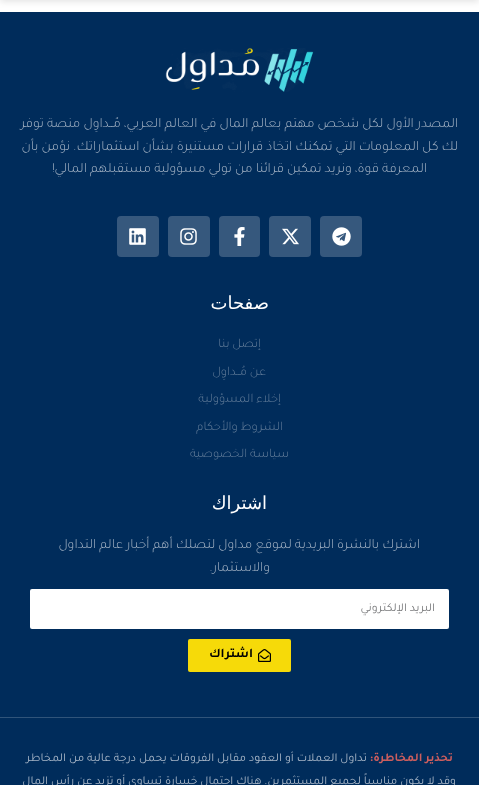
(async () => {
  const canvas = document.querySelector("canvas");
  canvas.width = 479;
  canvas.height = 785;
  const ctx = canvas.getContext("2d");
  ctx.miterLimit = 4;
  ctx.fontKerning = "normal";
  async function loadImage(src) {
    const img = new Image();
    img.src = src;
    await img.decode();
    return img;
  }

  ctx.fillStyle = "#ffffff";
  ctx.fillRect(0, 0, 479, 785);
  ctx.fillStyle = "rgba(0, 0, 0, 0.1)";
  ctx.filter = "blur(3px)";
  ctx.beginPath();
  ctx.rect(0, -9, 479, 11);
  ctx.fill();
  ctx.filter = "none";
  ctx.fillStyle = "#002c5b";
  ctx.fillRect(0, 12, 479, 705);
  ctx.drawImage(await loadImage("img/1.png"), 165, 48, 149, 44);
  ctx.fillStyle = "#36587d";
  ctx.beginPath();
  ctx.roundRect(320, 216, 42, 41, 4);
  ctx.fill();
  ctx.drawImage(await loadImage("img/2.png"), 332, 227, 19, 19);
  ctx.beginPath();
  ctx.roundRect(269, 216, 42, 41, 4);
  ctx.fill();
  ctx.drawImage(await loadImage("img/3.png"), 282, 228, 17, 17);
  ctx.beginPath();
  ctx.roundRect(219, 216, 41, 41, 4);
  ctx.fill();
  ctx.drawImage(await loadImage("img/4.png"), 234, 227, 11, 19);
  ctx.beginPath();
  ctx.roundRect(168, 216, 42, 41, 4);
  ctx.fill();
  ctx.drawImage(await loadImage("img/5.png"), 180, 228, 17, 17);
  ctx.beginPath();
  ctx.roundRect(117, 216, 42, 41, 4);
  ctx.fill();
  ctx.drawImage(await loadImage("img/6.png"), 129, 228, 17, 17);
  ctx.fillStyle = "#ffffff";
  ctx.beginPath();
  ctx.roundRect(30, 589, 419, 40, 2);
  ctx.fill();
  ctx.fillStyle = "#f6da09";
  ctx.beginPath();
  ctx.roundRect(188, 639, 103, 33, 2);
  ctx.fill();
  ctx.drawImage(await loadImage("img/7.png"), 258, 649, 13, 13);
  ctx.fillStyle = "#002c5b";
  ctx.fillRect(0, 718, 479, 67);
  ctx.fillStyle = "#30547a";
  ctx.fillRect(0, 717, 479, 1);
  ctx.direction = "rtl";
  ctx.font = "300 14px Tajawal";
  ctx.fillStyle = "#a6b5c6";
  for (const [text, x, y] of [
    ["المصدر الأول لكل شخص مهتم بعالم المال في العالم العربي، مُــداوِل منصة توفر", 458, 127],
    ["لك كل المعلومات التي تمكنك اتخاذ قرارات مستنيرة بشأن استثماراتك. نؤمن بأن", 458, 150],
    ["المعرفة قوة، ونريد تمكين قرائنا من تولي مسؤولية مستقبلهم المالي!", 427, 172],
  ]) {
    ctx.fillText(text, x, y);
  }
  ctx.font = "18px DejaVu Sans";
  ctx.fillStyle = "#ffffff";
  ctx.fillText("صفحات", 269, 309);
  ctx.font = "300 13px Tajawal";
  ctx.fillStyle = "#617c99";
  for (const [text, x, y] of [
    ["إتصل بنا", 261, 347],
    ["عن مُــداوِل", 266, 375],
    ["إﺧﻼء اﻟﻤﺴؤولية", 281, 402],
    ["الشروط والأحكام", 283, 430],
    ["سياسة الخصوصية", 289, 457],
  ]) {
    ctx.fillText(text, x, y);
  }
  ctx.font = "18px DejaVu Sans";
  ctx.fillStyle = "#ffffff";
  ctx.fillText("اشتراك", 267, 509);
  ctx.font = "300 14px Tajawal";
  ctx.fillStyle = "#a6b5c6";
  ctx.fillText("اشترك بالنشرة البريدية لموقع مداول لتصلك أهم أخبار عالم التداول", 420, 548);
  ctx.fillText("والاستثمار.", 270, 571);
  ctx.font = "12px Tajawal";
  ctx.fillStyle = "#797a7c";
  ctx.fillText("البريد الإلكتروني", 435, 611);
  ctx.font = "bold 13px Tajawal";
  ctx.fillStyle = "#000000";
  ctx.fillText("اشتراك", 253, 657);
  ctx.font = "bold 12px Tajawal";
  ctx.fillStyle = "#cc5e5e";
  ctx.fillText("تحذير المخاطرة:", 453, 761);
  ctx.font = "12px Tajawal";
  ctx.fillStyle = "#a6b5c6";
  ctx.fillText("تداول العملات أو العقود مقابل الفروقات يحمل درجة عالية من المخاطر", 367, 761);
  ctx.fillText("وقد لا يكون مناسباً لجميع المستثمرين. هناك احتمال خسارة تساوي أو تزيد عن رأس المال", 456, 784);
})();
